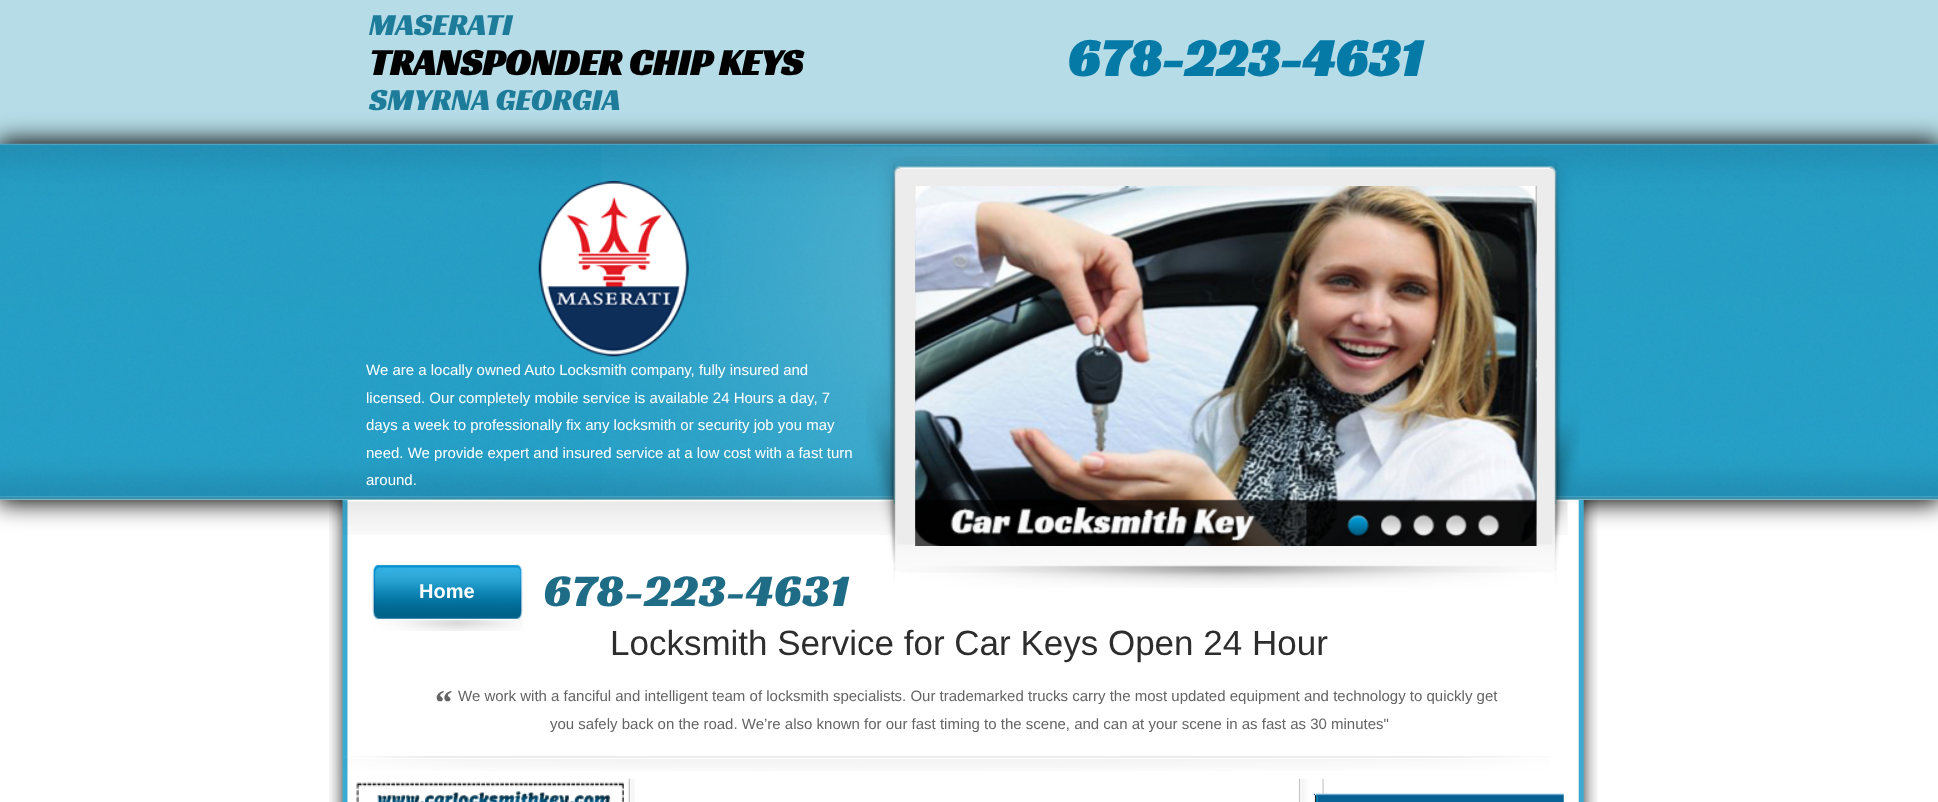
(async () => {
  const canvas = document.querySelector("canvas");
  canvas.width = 1938;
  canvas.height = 802;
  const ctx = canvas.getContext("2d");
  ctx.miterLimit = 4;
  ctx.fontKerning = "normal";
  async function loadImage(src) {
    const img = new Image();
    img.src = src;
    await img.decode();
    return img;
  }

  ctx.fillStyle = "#ffffff";
  ctx.fillRect(0, 0, 1938, 802);
  ctx.fillStyle = "#b6dde7";
  ctx.fillRect(0, 0, 1938, 144);
  ctx.fillStyle = "#000000";
  ctx.filter = "blur(12.5px)";
  ctx.beginPath();
  ctx.rect(-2, 141, 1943, 362);
  ctx.fill();
  ctx.filter = "none";
  ctx.drawImage(await loadImage("img/1.png"), 0, 143, 1938, 357);
  ctx.drawImage(await loadImage("img/2.png"), 601, 146, 728, 354);
  ctx.drawImage(await loadImage("img/3.png"), 538, 181, 151, 176);
  ctx.drawImage(await loadImage("img/15.png"), 329, 500, 1269, 302);
  ctx.drawImage(await loadImage("img/4.png"), 372, 564, 151, 67);
  ctx.drawImage(await loadImage("img/16.png"), 342, 501, 1226, 34);
  ctx.drawImage(await loadImage("img/5.png"), 866, 156, 714, 432);
  ctx.drawImage(await loadImage("img/6.png"), 915, 186, 1, 360);
  ctx.drawImage(await loadImage("img/7.png"), 915, 186, 622, 360);
  ctx.drawImage(await loadImage("img/8.png"), 1535, 186, 2, 360);
  ctx.drawImage(await loadImage("img/9.png"), 1306, 501, 230, 45);
  ctx.drawImage(await loadImage("img/10.png"), 1347, 514, 23, 23);
  ctx.drawImage(await loadImage("img/11.png"), 1380, 514, 22, 23);
  ctx.drawImage(await loadImage("img/12.png"), 1413, 514, 22, 23);
  ctx.drawImage(await loadImage("img/13.png"), 1445, 514, 22, 23);
  ctx.drawImage(await loadImage("img/14.png"), 1478, 514, 22, 23);
  ctx.drawImage(await loadImage("img/17.png"), 343, 756, 1207, 15);
  ctx.drawImage(await loadImage("img/18.png"), 628, 778, 7, 24);
  ctx.drawImage(await loadImage("img/19.png"), 356, 782, 268, 20);
  ctx.drawImage(await loadImage("img/20.png"), 1298, 778, 26, 24);
  ctx.drawImage(await loadImage("img/21.png"), 1313, 793, 251, 9);
  ctx.font = "31.25px Racing Sans One";
  ctx.fillStyle = "#1e7c9b";
  ctx.fillText("MASERATI", 369, 35);
  ctx.font = "bold 37.5px Racing Sans One";
  ctx.fillStyle = "#000000";
  ctx.fillText("TRANSPONDER CHIP KEYS", 369, 75);
  ctx.font = "bold 53.75px Racing Sans One";
  ctx.fillStyle = "#067aa7";
  ctx.fillText("678-223-4631", 1067, 76);
  ctx.font = "31.25px Racing Sans One";
  ctx.fillStyle = "#1e7c9b";
  ctx.fillText("SMYRNA GEORGIA", 369, 110);
  ctx.font = "15px Liberation Sans";
  ctx.fillStyle = "#ffffff";
  for (const [text, x, y] of [
    ["We are a locally owned Auto Locksmith company, fully insured and", 366, 375],
    ["licensed. Our completely mobile service is available 24 Hours a day, 7", 366, 403],
    ["days a week to professionally fix any locksmith or security job you may", 366, 430],
    ["need. We provide expert and insured service at a low cost with a fast turn", 366, 458],
    ["around.", 366, 485],
  ]) {
    ctx.fillText(text, x, y);
  }
  ctx.font = "bold 20px Liberation Sans";
  ctx.fillText("Home", 419, 598);
  ctx.font = "46.25px Racing Sans One";
  ctx.fillStyle = "#1e6c86";
  ctx.fillText("678-223-4631", 543, 606);
  ctx.font = "35px Liberation Sans";
  ctx.fillStyle = "#2d2d2d";
  ctx.fillText("Locksmith Service for Car Keys Open 24 Hour", 610, 655);
  ctx.font = "bold 35px Liberation Serif";
  ctx.fillStyle = "#646464";
  ctx.fillText("“", 435, 714);
  ctx.font = "15px Liberation Sans";
  ctx.fillText("We work with a fanciful and intelligent team of locksmith specialists. Our trademarked trucks carry the most updated equipment and technology to quickly get", 458, 701);
  ctx.fillText("you safely back on the road. We’re also known for our fast timing to the scene, and can at your scene in as fast as 30 minutes\"", 550, 729);
})();
